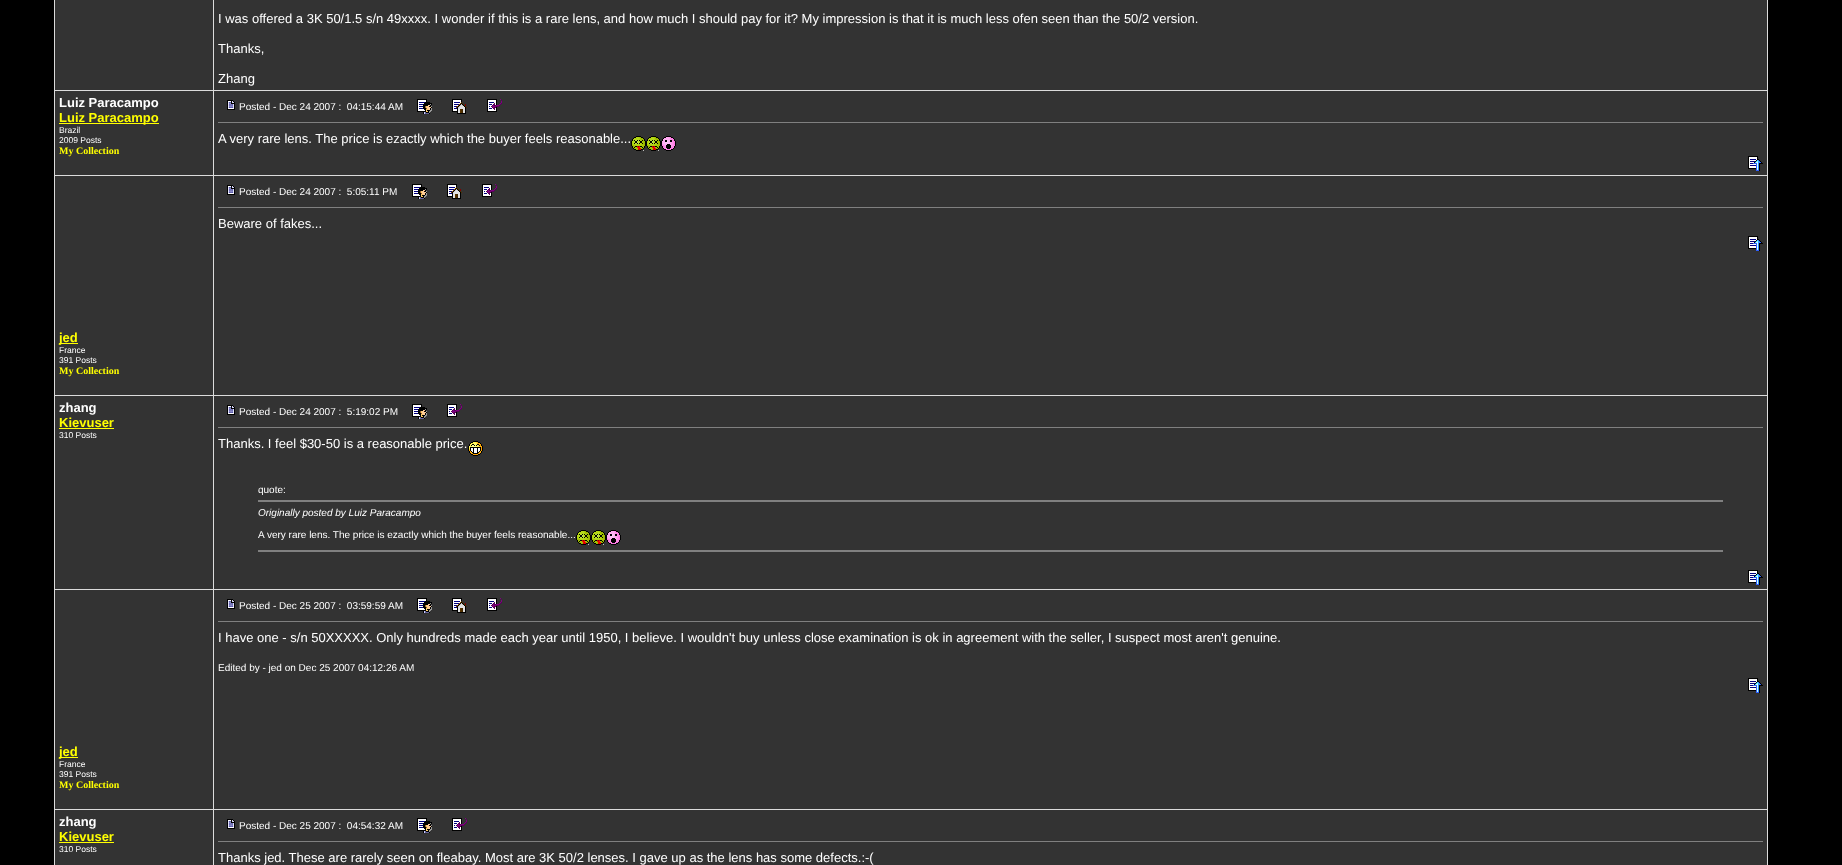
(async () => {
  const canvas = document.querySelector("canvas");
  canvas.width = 1842;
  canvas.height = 865;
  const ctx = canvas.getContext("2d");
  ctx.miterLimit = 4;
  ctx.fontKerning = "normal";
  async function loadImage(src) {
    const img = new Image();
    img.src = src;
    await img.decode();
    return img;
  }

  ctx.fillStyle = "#000000";
  ctx.fillRect(0, 0, 1842, 865);
  for (const [x, y, w, h, color] of [
    [54, 0, 1714, 865, "#dcdcdc"],
    [55, 0, 158, 90, "#333333"],
    [214, 0, 1553, 90, "#333333"],
    [55, 91, 158, 84, "#333333"],
    [59, 123, 100, 1, "#ffff00"],
    [214, 91, 1553, 84, "#333333"],
  ]) {
    ctx.fillStyle = color;
    ctx.fillRect(x, y, w, h);
  }
  ctx.drawImage(await loadImage("img/1.png"), 227, 100, 8, 10);
  ctx.drawImage(await loadImage("img/2.png"), 417, 99, 15, 15);
  ctx.drawImage(await loadImage("img/3.png"), 452, 99, 15, 15);
  ctx.drawImage(await loadImage("img/4.png"), 487, 99, 15, 13);
  ctx.fillStyle = "#808080";
  ctx.fillRect(218, 122, 1545, 1);
  ctx.drawImage(await loadImage("img/5.png"), 631, 136, 15, 15);
  ctx.drawImage(await loadImage("img/5.png"), 646, 136, 15, 15);
  ctx.drawImage(await loadImage("img/6.png"), 661, 136, 15, 15);
  ctx.drawImage(await loadImage("img/7.png"), 1748, 156, 15, 15);
  ctx.fillStyle = "#333333";
  ctx.fillRect(214, 176, 1553, 219);
  ctx.drawImage(await loadImage("img/1.png"), 227, 185, 8, 10);
  ctx.drawImage(await loadImage("img/2.png"), 412, 184, 15, 15);
  ctx.drawImage(await loadImage("img/3.png"), 447, 184, 15, 15);
  ctx.drawImage(await loadImage("img/4.png"), 482, 184, 15, 13);
  ctx.fillStyle = "#808080";
  ctx.fillRect(218, 207, 1545, 1);
  ctx.drawImage(await loadImage("img/7.png"), 1748, 236, 15, 15);
  for (const [x, y, w, h, color] of [
    [55, 176, 158, 219, "#333333"],
    [59, 343, 19, 1, "#ffff00"],
    [55, 396, 158, 193, "#333333"],
    [59, 428, 55, 1, "#ffff00"],
    [214, 396, 1553, 193, "#333333"],
  ]) {
    ctx.fillStyle = color;
    ctx.fillRect(x, y, w, h);
  }
  ctx.drawImage(await loadImage("img/1.png"), 227, 405, 8, 10);
  ctx.drawImage(await loadImage("img/2.png"), 412, 404, 15, 15);
  ctx.drawImage(await loadImage("img/4.png"), 447, 404, 15, 13);
  ctx.fillStyle = "#808080";
  ctx.fillRect(218, 427, 1545, 1);
  ctx.drawImage(await loadImage("img/8.png"), 468, 441, 15, 15);
  ctx.fillRect(258, 500, 1465, 2);
  ctx.drawImage(await loadImage("img/5.png"), 576, 530, 15, 15);
  ctx.drawImage(await loadImage("img/5.png"), 591, 530, 15, 15);
  ctx.drawImage(await loadImage("img/6.png"), 606, 530, 15, 15);
  ctx.fillRect(258, 550, 1465, 2);
  ctx.drawImage(await loadImage("img/7.png"), 1748, 570, 15, 15);
  ctx.fillStyle = "#333333";
  ctx.fillRect(214, 590, 1553, 219);
  ctx.drawImage(await loadImage("img/1.png"), 227, 599, 8, 10);
  ctx.drawImage(await loadImage("img/2.png"), 417, 598, 15, 15);
  ctx.drawImage(await loadImage("img/3.png"), 452, 598, 15, 15);
  ctx.drawImage(await loadImage("img/4.png"), 487, 598, 15, 13);
  ctx.fillStyle = "#808080";
  ctx.fillRect(218, 621, 1545, 1);
  ctx.drawImage(await loadImage("img/7.png"), 1748, 678, 15, 15);
  for (const [x, y, w, h, color] of [
    [55, 590, 158, 219, "#333333"],
    [59, 757, 19, 1, "#ffff00"],
    [55, 810, 158, 55, "#333333"],
    [59, 842, 55, 1, "#ffff00"],
    [214, 810, 1553, 55, "#333333"],
  ]) {
    ctx.fillStyle = color;
    ctx.fillRect(x, y, w, h);
  }
  ctx.drawImage(await loadImage("img/1.png"), 227, 819, 8, 10);
  ctx.drawImage(await loadImage("img/2.png"), 417, 818, 15, 15);
  ctx.drawImage(await loadImage("img/4.png"), 452, 818, 15, 13);
  ctx.fillStyle = "#808080";
  ctx.fillRect(218, 841, 1545, 1);
  ctx.font = "13px Liberation Sans";
  ctx.fillStyle = "#ffffff";
  for (const [text, x, y] of [
    ["I was offered a 3K 50/1.5 s/n 49xxxx. I wonder if this is a rare lens, and how much I should pay for it? My impression is that it is much less ofen seen than the 50/2 version.", 218, 23],
    ["Thanks,", 218, 53],
    ["Zhang", 218, 83],
  ]) {
    ctx.fillText(text, x, y);
  }
  ctx.font = "bold 13px Liberation Sans";
  ctx.fillText("Luiz Paracampo", 59, 107);
  ctx.fillStyle = "#ffff00";
  ctx.fillText("Luiz Paracampo", 59, 122);
  ctx.font = "8.5px Liberation Sans";
  ctx.fillStyle = "#ffffff";
  ctx.fillText("Brazil", 59, 133);
  ctx.fillText("2009 Posts", 59, 143);
  ctx.font = "bold 10px Liberation Serif";
  ctx.fillStyle = "#ffff00";
  ctx.fillText("My Collection", 59, 154);
  ctx.font = "10px Liberation Sans";
  ctx.fillStyle = "#ffffff";
  ctx.fillText("Posted - Dec 24 2007 :  04:15:44 AM", 239, 110);
  ctx.font = "13px Liberation Sans";
  ctx.fillText("A very rare lens. The price is ezactly which the buyer feels reasonable...", 218, 143);
  ctx.font = "10px Liberation Sans";
  ctx.fillText("Posted - Dec 24 2007 :  5:05:11 PM", 239, 195);
  ctx.font = "13px Liberation Sans";
  ctx.fillText("Beware of fakes...", 218, 228);
  ctx.font = "bold 13px Liberation Sans";
  ctx.fillStyle = "#ffff00";
  ctx.fillText("jed", 59, 342);
  ctx.font = "8.5px Liberation Sans";
  ctx.fillStyle = "#ffffff";
  ctx.fillText("France", 59, 353);
  ctx.fillText("391 Posts", 59, 363);
  ctx.font = "bold 10px Liberation Serif";
  ctx.fillStyle = "#ffff00";
  ctx.fillText("My Collection", 59, 374);
  ctx.font = "bold 13px Liberation Sans";
  ctx.fillStyle = "#ffffff";
  ctx.fillText("zhang", 59, 412);
  ctx.fillStyle = "#ffff00";
  ctx.fillText("Kievuser", 59, 427);
  ctx.font = "8.5px Liberation Sans";
  ctx.fillStyle = "#ffffff";
  ctx.fillText("310 Posts", 59, 438);
  ctx.font = "10px Liberation Sans";
  ctx.fillText("Posted - Dec 24 2007 :  5:19:02 PM", 239, 415);
  ctx.font = "13px Liberation Sans";
  ctx.fillText("Thanks. I feel $30-50 is a reasonable price.", 218, 448);
  ctx.font = "10px Liberation Sans";
  ctx.fillText("quote:", 258, 493);
  ctx.font = "italic 10px Liberation Sans";
  ctx.fillText("Originally posted by Luiz Paracampo", 258, 516);
  ctx.font = "10px Liberation Sans";
  ctx.fillText("A very rare lens. The price is ezactly which the buyer feels reasonable...", 258, 538);
  ctx.fillText("Posted - Dec 25 2007 :  03:59:59 AM", 239, 609);
  ctx.font = "13px Liberation Sans";
  ctx.fillText("I have one - s/n 50XXXXX. Only hundreds made each year until 1950, I believe. I wouldn't buy unless close examination is ok in agreement with the seller, I suspect most aren't genuine.", 218, 642);
  ctx.font = "10px Liberation Sans";
  ctx.fillText("Edited by - jed on Dec 25 2007 04:12:26 AM", 218, 671);
  ctx.font = "bold 13px Liberation Sans";
  ctx.fillStyle = "#ffff00";
  ctx.fillText("jed", 59, 756);
  ctx.font = "8.5px Liberation Sans";
  ctx.fillStyle = "#ffffff";
  ctx.fillText("France", 59, 767);
  ctx.fillText("391 Posts", 59, 777);
  ctx.font = "bold 10px Liberation Serif";
  ctx.fillStyle = "#ffff00";
  ctx.fillText("My Collection", 59, 788);
  ctx.font = "bold 13px Liberation Sans";
  ctx.fillStyle = "#ffffff";
  ctx.fillText("zhang", 59, 826);
  ctx.fillStyle = "#ffff00";
  ctx.fillText("Kievuser", 59, 841);
  ctx.font = "8.5px Liberation Sans";
  ctx.fillStyle = "#ffffff";
  ctx.fillText("310 Posts", 59, 852);
  ctx.font = "10px Liberation Sans";
  ctx.fillText("Posted - Dec 25 2007 :  04:54:32 AM", 239, 829);
  ctx.font = "13px Liberation Sans";
  ctx.fillText("Thanks jed. These are rarely seen on fleabay. Most are 3K 50/2 lenses. I gave up as the lens has some defects.:-(", 218, 862);
})();
